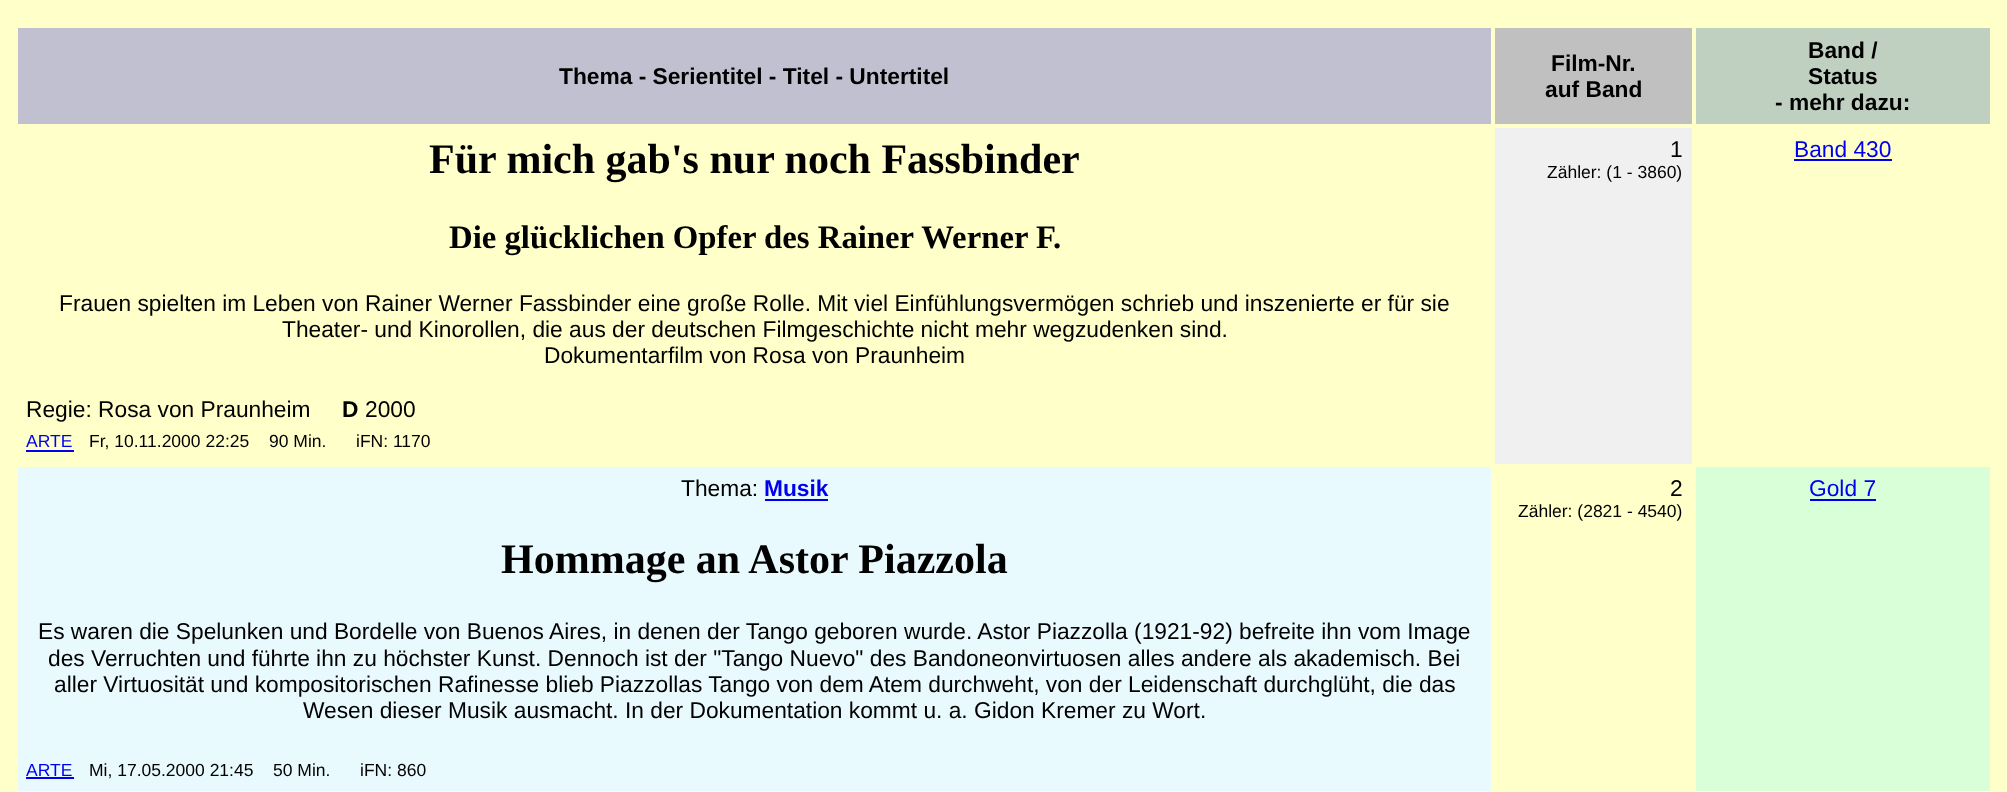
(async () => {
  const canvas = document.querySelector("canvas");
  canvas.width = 2007;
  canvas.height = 792;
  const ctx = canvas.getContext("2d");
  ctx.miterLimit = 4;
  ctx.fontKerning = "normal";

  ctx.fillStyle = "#ffffc9";
  ctx.fillRect(0, 0, 2007, 792);
  for (const [x, y, w, h, color] of [
    [18, 28, 1473, 96, "#c0c0d0"],
    [1495, 28, 197, 96, "#c0c0c0"],
    [1696, 28, 294, 96, "#c0d0c0"],
    [26, 450, 48, 2, "#0000ee"],
    [1495, 128, 197, 336, "#f0f0f0"],
    [1794, 159, 98, 2, "#0000ee"],
    [18, 467, 1473, 324, "#e9faff"],
    [765, 499, 63, 2, "#0000ee"],
    [26, 777, 48, 2, "#0000ee"],
    [1696, 467, 294, 324, "#d9ffd9"],
    [1810, 499, 66, 2, "#0000ee"],
  ]) {
    ctx.fillStyle = color;
    ctx.fillRect(x, y, w, h);
  }
  ctx.font = "bold 22.75px Liberation Sans";
  ctx.fillStyle = "#000000";
  for (const [text, x, y] of [
    ["Thema - Serientitel - Titel - Untertitel", 559, 84],
    ["Film-Nr.", 1551, 71],
    ["auf Band", 1545, 97],
    ["Band /", 1808, 58],
    ["Status", 1808, 84],
    ["- mehr dazu:", 1775, 110],
  ]) {
    ctx.fillText(text, x, y);
  }
  ctx.font = "bold 42px Liberation Serif";
  ctx.fillText("Für mich gab's nur noch Fassbinder", 429, 173);
  ctx.font = "bold 32.75px Liberation Serif";
  ctx.fillText("Die glücklichen Opfer des Rainer Werner F.", 449, 248);
  ctx.font = "22.75px Liberation Sans";
  for (const [text, x, y] of [
    ["Frauen spielten im Leben von Rainer Werner Fassbinder eine große Rolle. Mit viel Einfühlungsvermögen schrieb und inszenierte er für sie", 59, 311],
    ["Theater- und Kinorollen, die aus der deutschen Filmgeschichte nicht mehr wegzudenken sind.", 282, 337],
    ["Dokumentarfilm von Rosa von Praunheim", 544, 363],
    ["Regie: Rosa von Praunheim", 26, 417],
  ]) {
    ctx.fillText(text, x, y);
  }
  ctx.font = "bold 22.75px Liberation Sans";
  ctx.fillText("D", 342, 417);
  ctx.font = "22.75px Liberation Sans";
  ctx.fillText("2000", 365, 417);
  ctx.font = "17.5px Liberation Sans";
  ctx.fillStyle = "#0000ee";
  ctx.fillText("ARTE", 26, 447);
  ctx.fillStyle = "#000000";
  for (const [text, x, y] of [
    ["Fr, 10.11.2000 22:25", 89, 447],
    ["90 Min.", 269, 447],
    ["iFN: 1170", 356, 447],
  ]) {
    ctx.fillText(text, x, y);
  }
  ctx.font = "22.75px Liberation Sans";
  ctx.fillText("1", 1670, 157);
  ctx.font = "17.5px Liberation Sans";
  ctx.fillText("Zähler: (1 - 3860)", 1547, 178);
  ctx.font = "22.75px Liberation Sans";
  ctx.fillStyle = "#0000ee";
  ctx.fillText("Band 430", 1794, 157);
  ctx.fillStyle = "#000000";
  ctx.fillText("Thema:", 681, 496);
  ctx.font = "bold 22.75px Liberation Sans";
  ctx.fillStyle = "#0000ee";
  ctx.fillText("Musik", 764, 496);
  ctx.font = "bold 42px Liberation Serif";
  ctx.fillStyle = "#000000";
  ctx.fillText("Hommage an Astor Piazzola", 501, 573);
  ctx.font = "22.75px Liberation Sans";
  for (const [text, x, y] of [
    ["Es waren die Spelunken und Bordelle von Buenos Aires, in denen der Tango geboren wurde. Astor Piazzolla (1921-92) befreite ihn vom Image", 38, 639],
    ["des Verruchten und führte ihn zu höchster Kunst. Dennoch ist der \"Tango Nuevo\" des Bandoneonvirtuosen alles andere als akademisch. Bei", 48, 666],
    ["aller Virtuosität und kompositorischen Rafinesse blieb Piazzollas Tango von dem Atem durchweht, von der Leidenschaft durchglüht, die das", 54, 692],
    ["Wesen dieser Musik ausmacht. In der Dokumentation kommt u. a. Gidon Kremer zu Wort.", 303, 718],
  ]) {
    ctx.fillText(text, x, y);
  }
  ctx.font = "17.5px Liberation Sans";
  ctx.fillStyle = "#0000ee";
  ctx.fillText("ARTE", 26, 776);
  ctx.fillStyle = "#000000";
  for (const [text, x, y] of [
    ["Mi, 17.05.2000 21:45", 89, 776],
    ["50 Min.", 273, 776],
    ["iFN: 860", 360, 776],
  ]) {
    ctx.fillText(text, x, y);
  }
  ctx.font = "22.75px Liberation Sans";
  ctx.fillText("2", 1670, 496);
  ctx.font = "17.5px Liberation Sans";
  ctx.fillText("Zähler: (2821 - 4540)", 1518, 517);
  ctx.font = "22.75px Liberation Sans";
  ctx.fillStyle = "#0000ee";
  ctx.fillText("Gold 7", 1809, 496);
})();
